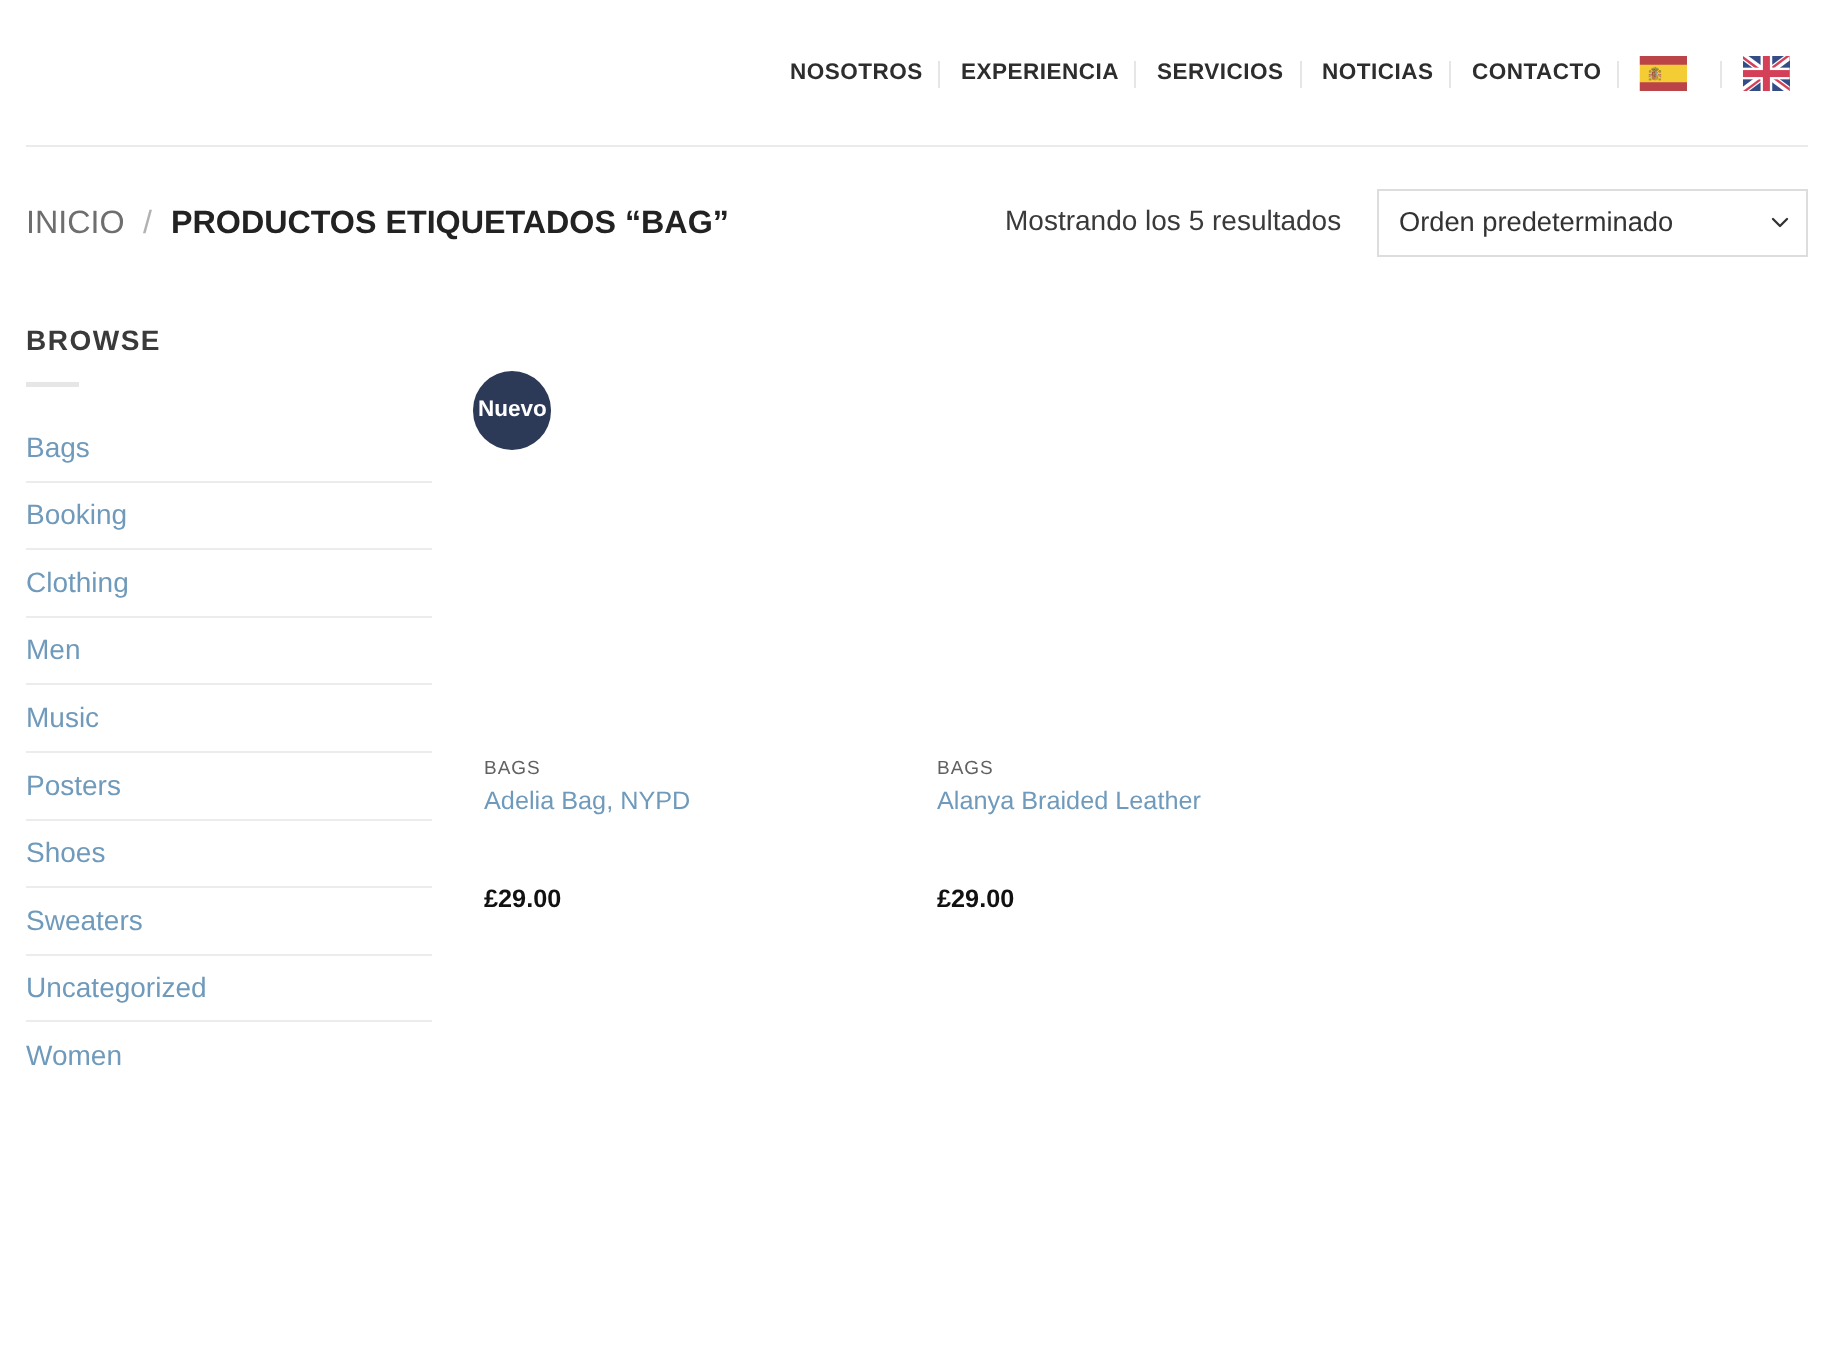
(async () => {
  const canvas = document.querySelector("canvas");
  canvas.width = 1834;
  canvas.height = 1364;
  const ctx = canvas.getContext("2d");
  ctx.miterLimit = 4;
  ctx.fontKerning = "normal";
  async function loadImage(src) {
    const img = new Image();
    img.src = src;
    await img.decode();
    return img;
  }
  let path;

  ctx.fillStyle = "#ffffff";
  ctx.fillRect(0, 0, 1834, 1364);
  for (const [x, y, w, h, color] of [
    [938, 61, 2, 27, "#e6e6e6"],
    [1134, 61, 2, 27, "#e6e6e6"],
    [1300, 61, 2, 27, "#e6e6e6"],
    [1449, 61, 2, 27, "#e6e6e6"],
    [1617, 61, 2, 27, "#e6e6e6"],
  ]) {
    ctx.fillStyle = color;
    ctx.fillRect(x, y, w, h);
  }
  ctx.drawImage(await loadImage("img/1.png"), 1639, 56, 48, 35);
  ctx.fillRect(1720, 61, 2, 27);
  ctx.drawImage(await loadImage("img/2.png"), 1743, 56, 47, 35);
  ctx.fillStyle = "#ebebeb";
  ctx.fillRect(26, 145, 1782, 2);
  path = new Path2D("M1773 219L1780 226L1787 219");
  ctx.strokeStyle = "#333333";
  ctx.lineWidth = 2.3;
  ctx.lineCap = "round";
  ctx.lineJoin = "round";
  ctx.stroke(path);
  ctx.strokeStyle = "#dddddd";
  ctx.lineWidth = 2;
  ctx.lineJoin = "miter";
  ctx.strokeRect(1378, 190, 429, 66);
  for (const [x, y, w, h, color] of [
    [26, 382, 53, 5, "#e6e6e6"],
    [26, 481, 406, 2, "#ececec"],
    [26, 548, 406, 2, "#ececec"],
    [26, 616, 406, 2, "#ececec"],
    [26, 683, 406, 2, "#ececec"],
    [26, 751, 406, 2, "#ececec"],
    [26, 819, 406, 2, "#ececec"],
    [26, 886, 406, 2, "#ececec"],
    [26, 954, 406, 2, "#ececec"],
    [26, 1020, 406, 2, "#ececec"],
  ]) {
    ctx.fillStyle = color;
    ctx.fillRect(x, y, w, h);
  }
  ctx.fillStyle = "#2c3957";
  ctx.beginPath();
  ctx.roundRect(473, 371, 78, 79, 39);
  ctx.fill();
  ctx.letterSpacing = "0.5px";
  ctx.font = "bold 22.5px Liberation Sans";
  ctx.fillStyle = "#2d2d2d";
  for (const [text, x, y] of [
    ["NOSOTROS", 790, 79],
    ["EXPERIENCIA", 961, 79],
    ["SERVICIOS", 1157, 79],
    ["NOTICIAS", 1322, 79],
    ["CONTACTO", 1472, 79],
  ]) {
    ctx.fillText(text, x, y);
  }
  ctx.letterSpacing = "0px";
  ctx.font = "32.25px Liberation Sans";
  ctx.fillStyle = "#6e6e6e";
  ctx.fillText("INICIO", 26, 233);
  ctx.fillStyle = "#b2b2b2";
  ctx.fillText("/", 143, 233);
  ctx.font = "bold 32.25px Liberation Sans";
  ctx.fillStyle = "#222222";
  ctx.fillText("PRODUCTOS ETIQUETADOS “BAG”", 171, 233);
  ctx.font = "28px Liberation Sans";
  ctx.fillStyle = "#3a3a3a";
  ctx.fillText("Mostrando los 5 resultados", 1005, 230);
  ctx.font = "27.25px Liberation Sans";
  ctx.fillStyle = "#333333";
  ctx.fillText("Orden predeterminado", 1399, 231);
  ctx.letterSpacing = "1.5px";
  ctx.font = "bold 28px Liberation Sans";
  ctx.fillStyle = "#3a3a3a";
  ctx.fillText("BROWSE", 26, 350);
  ctx.letterSpacing = "0px";
  ctx.font = "28px Liberation Sans";
  ctx.fillStyle = "#6f9abb";
  for (const [text, x, y] of [
    ["Bags", 26, 457],
    ["Booking", 26, 524],
    ["Clothing", 26, 592],
    ["Men", 26, 659],
    ["Music", 26, 727],
    ["Posters", 26, 795],
    ["Shoes", 26, 862],
    ["Sweaters", 26, 930],
    ["Uncategorized", 26, 997],
    ["Women", 26, 1065],
  ]) {
    ctx.fillText(text, x, y);
  }
  ctx.font = "bold 22.5px Liberation Sans";
  ctx.fillStyle = "#ffffff";
  ctx.fillText("Nuevo", 478, 416);
  ctx.letterSpacing = "1px";
  ctx.font = "19px Liberation Sans";
  ctx.fillStyle = "#616161";
  ctx.fillText("BAGS", 484, 774);
  ctx.letterSpacing = "0px";
  ctx.font = "25.25px Liberation Sans";
  ctx.fillStyle = "#6f9abb";
  ctx.fillText("Adelia Bag, NYPD", 484, 809);
  ctx.font = "bold 25.25px Liberation Sans";
  ctx.fillStyle = "#111111";
  ctx.fillText("£29.00", 484, 907);
  ctx.letterSpacing = "1px";
  ctx.font = "19px Liberation Sans";
  ctx.fillStyle = "#616161";
  ctx.fillText("BAGS", 937, 774);
  ctx.letterSpacing = "0px";
  ctx.font = "25.25px Liberation Sans";
  ctx.fillStyle = "#6f9abb";
  ctx.fillText("Alanya Braided Leather", 937, 809);
  ctx.font = "bold 25.25px Liberation Sans";
  ctx.fillStyle = "#111111";
  ctx.fillText("£29.00", 937, 907);
})();
